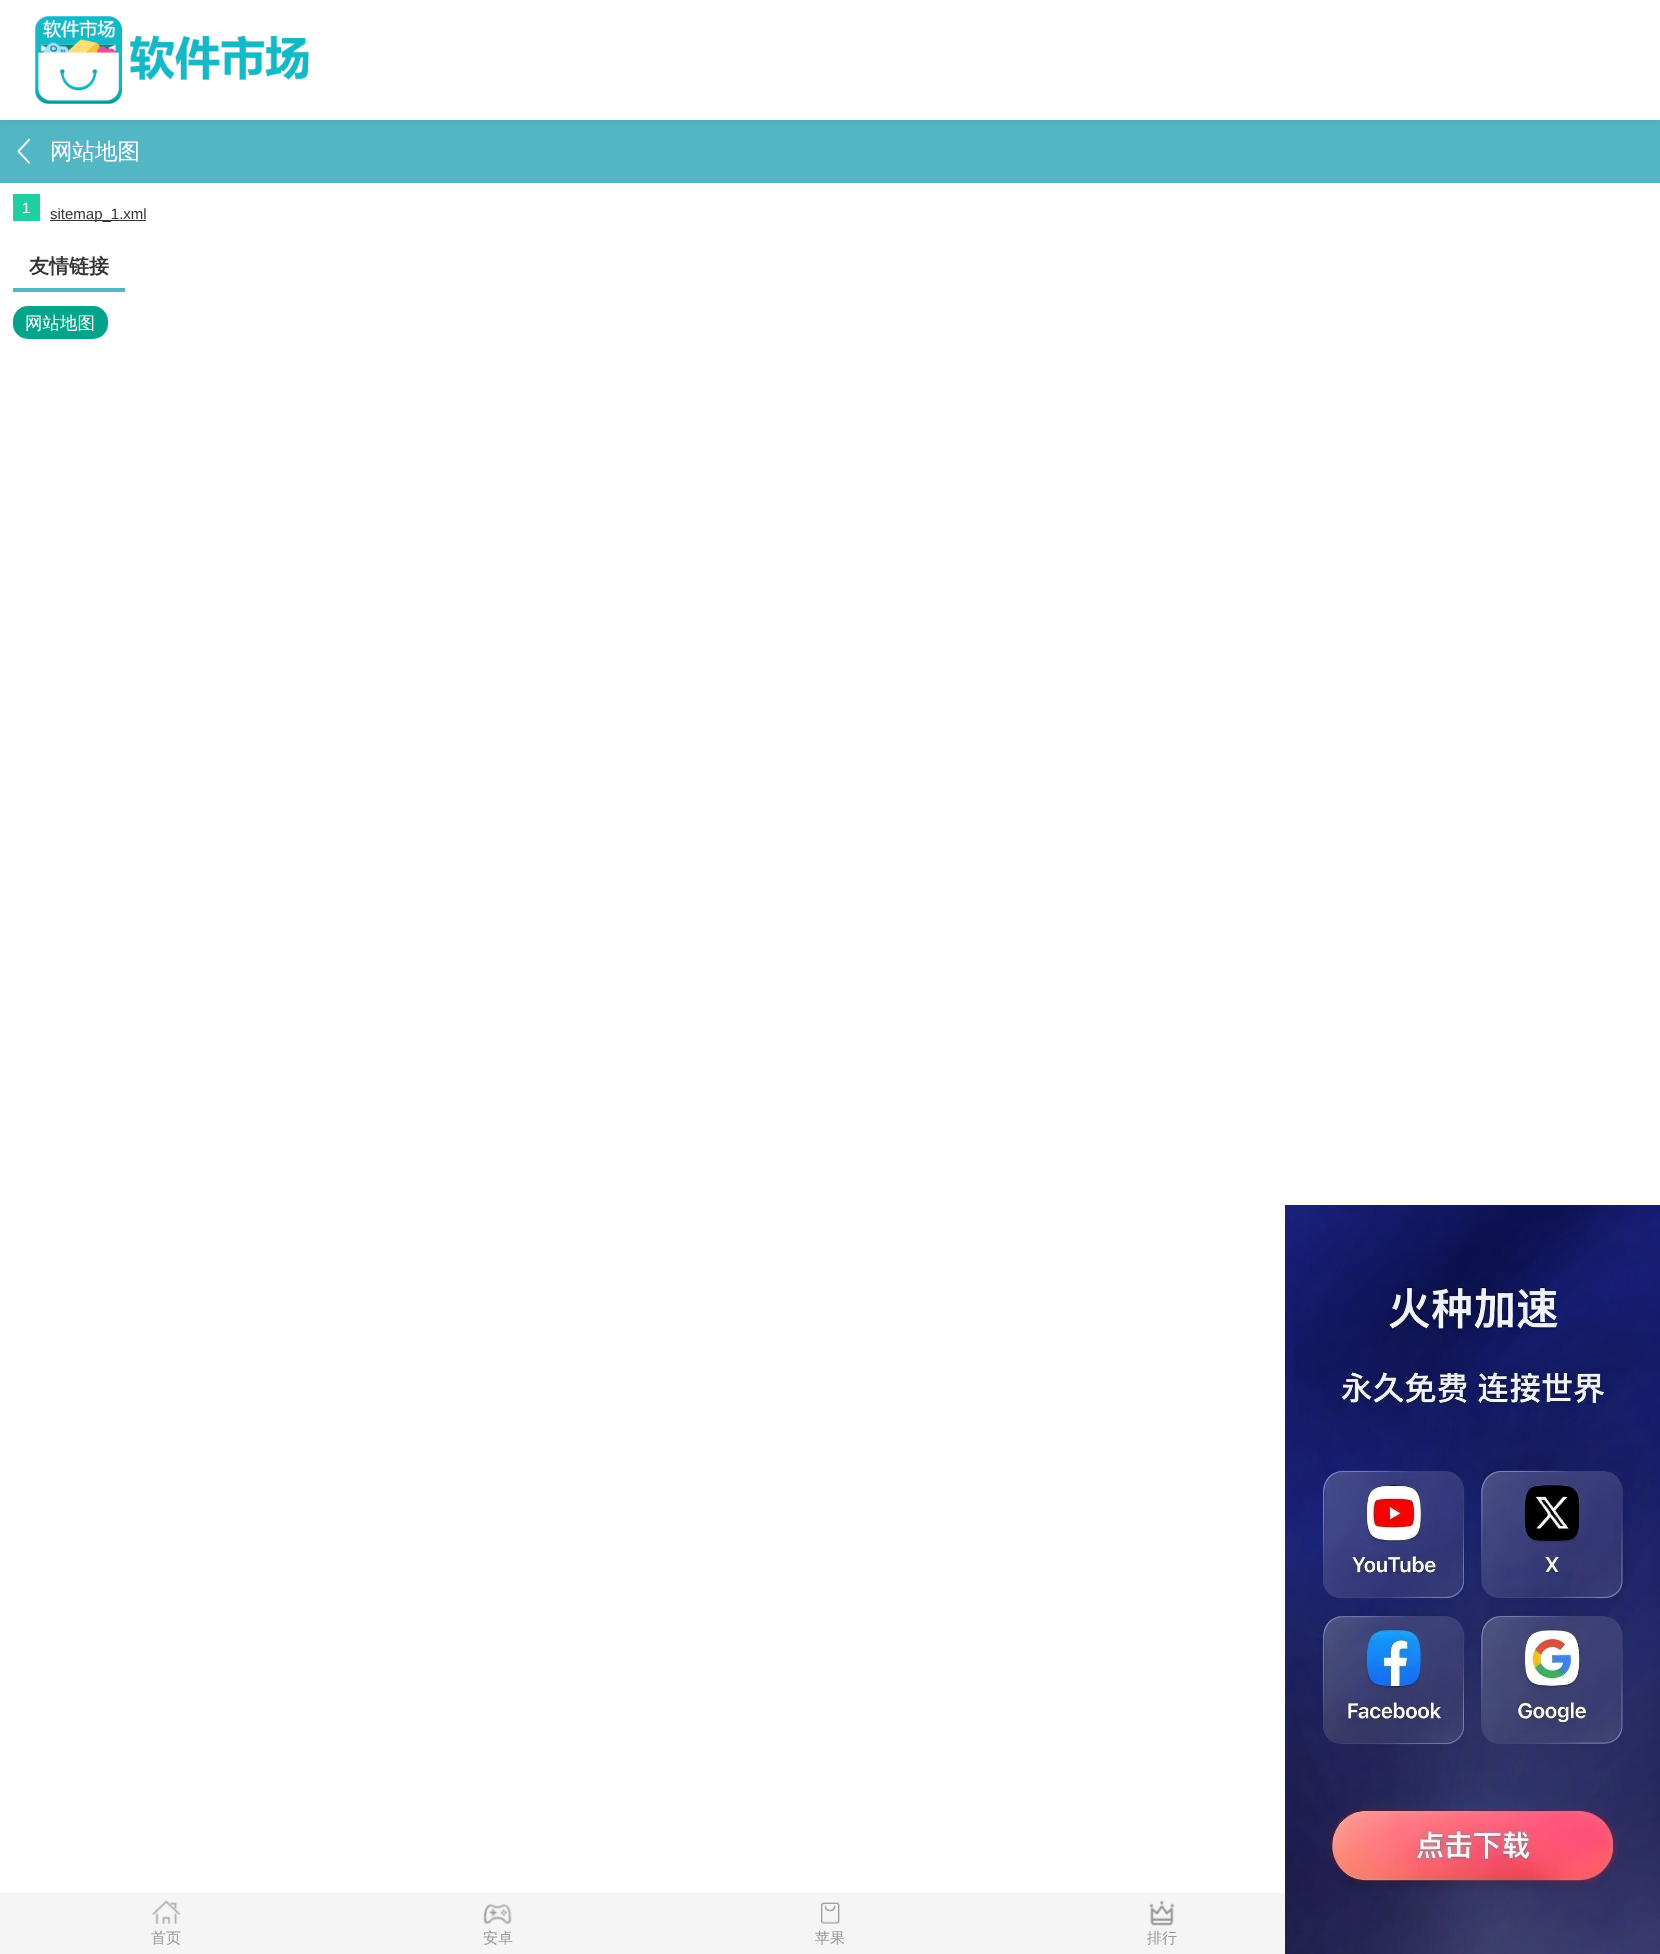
(async () => {
  const canvas = document.querySelector("canvas");
  canvas.width = 1660;
  canvas.height = 1954;
  const ctx = canvas.getContext("2d");
  ctx.miterLimit = 4;
  ctx.fontKerning = "normal";
  async function loadImage(src) {
    const img = new Image();
    img.src = src;
    await img.decode();
    return img;
  }

  ctx.fillStyle = "#ffffff";
  ctx.fillRect(0, 0, 1660, 1954);
  ctx.fillStyle = "#53b6c5";
  ctx.fillRect(0, 120, 1660, 63);
  ctx.fillStyle = "rgba(0, 0, 0, 0.04)";
  ctx.filter = "blur(2px)";
  ctx.beginPath();
  ctx.rect(0, 4, 1660, 120);
  ctx.fill();
  ctx.filter = "none";
  ctx.fillStyle = "#ffffff";
  ctx.fillRect(0, 3, 1660, 117);
  ctx.drawImage(await loadImage("img/1.png"), 34, 16, 275, 88);
  ctx.drawImage(await loadImage("img/2.png"), 17, 138, 13, 26);
  for (const [x, y, w, h, color] of [
    [13, 194, 27, 27, "#20cea4"],
    [50, 220, 96, 1, "#333333"],
    [13, 288, 112, 4, "#53b6c5"],
  ]) {
    ctx.fillStyle = color;
    ctx.fillRect(x, y, w, h);
  }
  ctx.fillStyle = "#03a48b";
  ctx.beginPath();
  ctx.roundRect(13, 306, 95, 33, 15);
  ctx.fill();
  ctx.fillStyle = "rgba(0, 0, 0, 0.85)";
  ctx.filter = "blur(0.5px)";
  ctx.beginPath();
  ctx.rect(0, 1893, 1660, 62);
  ctx.fill();
  ctx.filter = "none";
  ctx.fillStyle = "#f5f5f5";
  ctx.fillRect(0, 1893, 1285, 61);
  ctx.drawImage(await loadImage("img/3.png"), 152, 1900, 29, 24);
  ctx.drawImage(await loadImage("img/4.png"), 483, 1903, 29, 21);
  ctx.drawImage(await loadImage("img/5.png"), 821, 1902, 19, 22);
  ctx.drawImage(await loadImage("img/6.png"), 1149, 1900, 26, 26);
  ctx.drawImage(await loadImage("img/7.png"), 1285, 1205, 375, 749);
  ctx.font = "500 22.5px WenQuanYi Zen Hei";
  ctx.fillStyle = "#ffffff";
  ctx.fillText("网站地图", 50, 159);
  ctx.font = "15px Liberation Sans";
  ctx.fillText("1", 22, 213);
  ctx.fillStyle = "#333333";
  ctx.fillText("sitemap_1.xml", 50, 219);
  ctx.font = "bold 20px WenQuanYi Zen Hei";
  ctx.fillText("友情链接", 29, 273);
  ctx.font = "500 17.5px WenQuanYi Zen Hei";
  ctx.fillStyle = "#ffffff";
  ctx.fillText("网站地图", 25, 329);
  ctx.font = "500 15px WenQuanYi Zen Hei";
  ctx.fillStyle = "#999999";
  for (const [text, x, y] of [
    ["首页", 151, 1943],
    ["安卓", 483, 1943],
    ["苹果", 815, 1943],
    ["排行", 1147, 1943],
  ]) {
    ctx.fillText(text, x, y);
  }
})();
